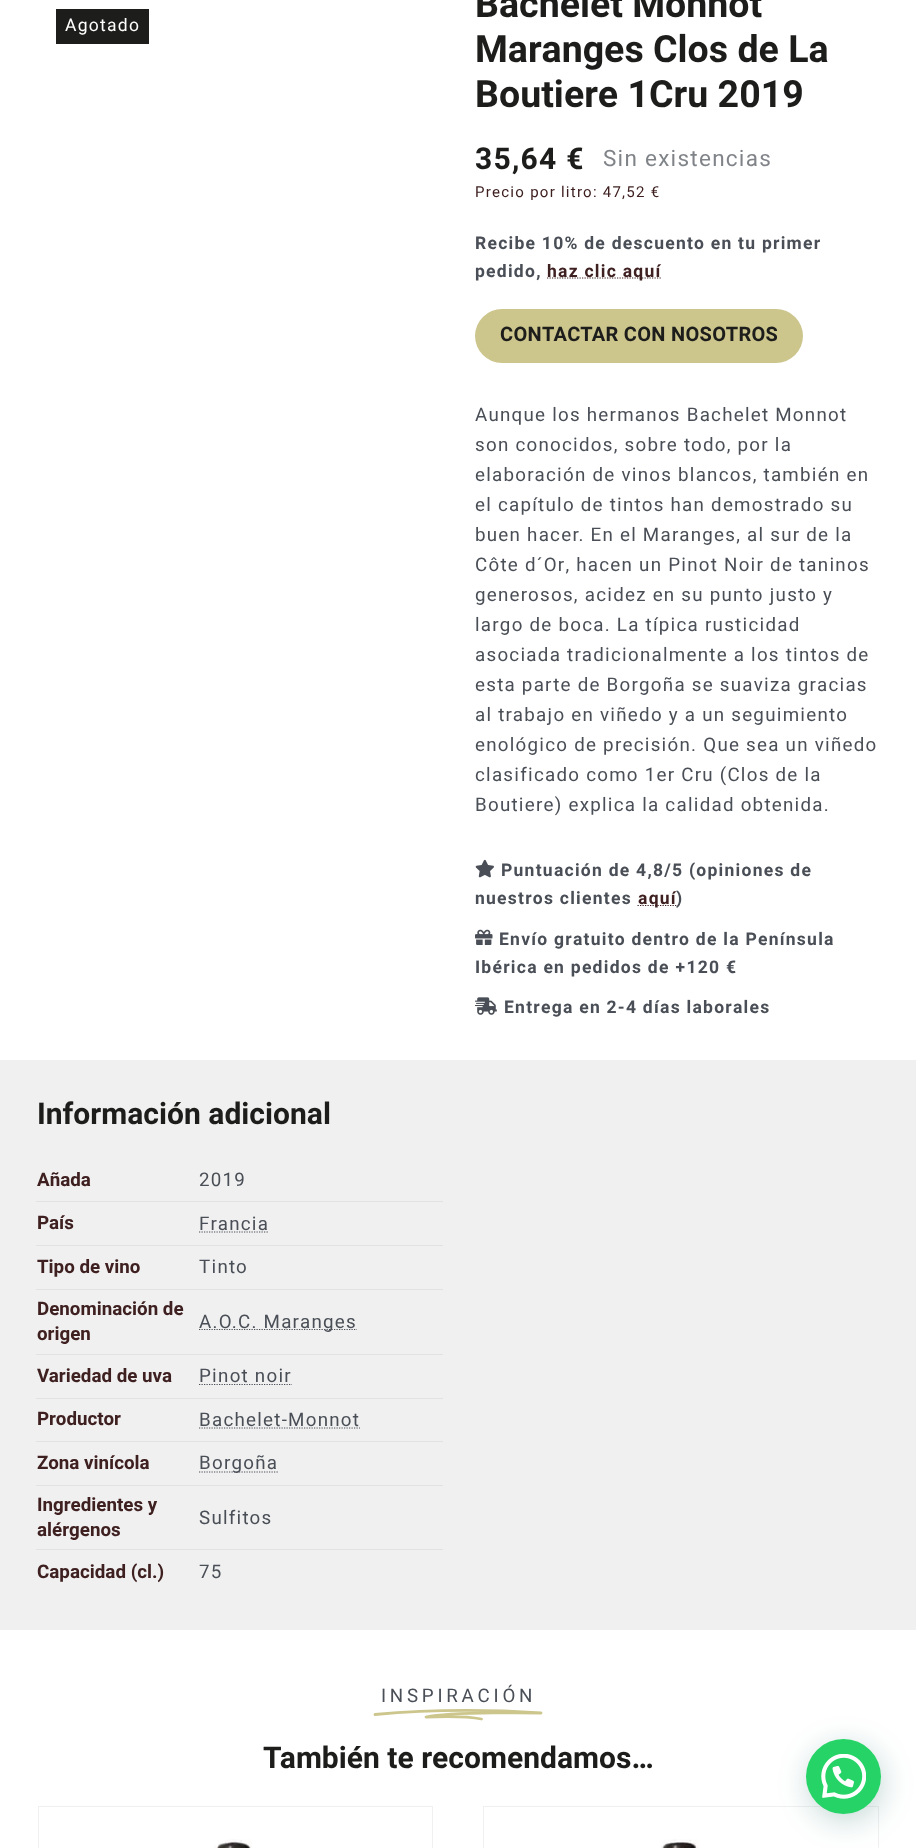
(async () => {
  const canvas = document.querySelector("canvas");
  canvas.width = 916;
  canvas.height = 1848;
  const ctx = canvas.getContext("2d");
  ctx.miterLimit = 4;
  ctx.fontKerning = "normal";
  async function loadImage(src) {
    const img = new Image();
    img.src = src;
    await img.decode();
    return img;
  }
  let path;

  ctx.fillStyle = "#ffffff";
  ctx.fillRect(0, 0, 916, 1848);
  ctx.fillStyle = "#1d1d1b";
  ctx.fillRect(56, 9, 93, 35);
  path = new Path2D("M547 278H662");
  ctx.strokeStyle = "#3f2021";
  ctx.lineWidth = 1.2;
  ctx.setLineDash([1.25, 1.25]);
  ctx.stroke(path);
  ctx.fillStyle = "#ccc68d";
  ctx.beginPath();
  ctx.roundRect(475, 309, 328, 54, 27);
  ctx.fill();
  ctx.drawImage(await loadImage("img/1.png"), 475, 859, 19, 19);
  path = new Path2D("M637.5 905.5H676.5");
  ctx.stroke(path);
  ctx.drawImage(await loadImage("img/2.png"), 475, 929, 18, 16);
  ctx.drawImage(await loadImage("img/3.png"), 475, 997, 22, 18);
  for (const [x, y, w, h, color] of [
    [0, 1060, 916, 570, "#f0f0f0"],
    [36, 1201, 407, 1, "#e2e2e2"],
    [36, 1245, 407, 1, "#e2e2e2"],
  ]) {
    ctx.fillStyle = color;
    ctx.fillRect(x, y, w, h);
  }
  path = new Path2D("M199 1232H269");
  ctx.strokeStyle = "#4a4e57";
  ctx.stroke(path);
  ctx.fillRect(36, 1289, 407, 1);
  ctx.fillRect(36, 1354, 407, 1);
  path = new Path2D("M199 1329.5H357");
  ctx.stroke(path);
  ctx.fillRect(36, 1398, 407, 1);
  path = new Path2D("M199 1384.5H292");
  ctx.stroke(path);
  ctx.fillRect(36, 1441, 407, 1);
  path = new Path2D("M199 1428H360");
  ctx.stroke(path);
  ctx.fillRect(36, 1485, 407, 1);
  path = new Path2D("M199 1472H278.5");
  ctx.stroke(path);
  ctx.fillRect(36, 1549, 407, 1);
  path = new Path2D("M375 1714.5C417.5 1710.5 460.5 1709.5 503.5 1711L541 1713C541 1713 452 1711.5 426 1717C426 1717 464.5 1715.5 481.5 1719");
  ctx.strokeStyle = "#ccc68d";
  ctx.lineWidth = 2.8;
  ctx.lineCap = "round";
  ctx.lineJoin = "round";
  ctx.setLineDash([]);
  ctx.stroke(path);
  ctx.strokeStyle = "#f0f0f0";
  ctx.lineWidth = 1;
  ctx.lineJoin = "miter";
  ctx.strokeRect(38.5, 1806.5, 394, 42);
  ctx.drawImage(await loadImage("img/4.png"), 214, 1839, 38, 9);
  ctx.strokeRect(483.5, 1806.5, 395, 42);
  ctx.drawImage(await loadImage("img/5.png"), 661, 1839, 39, 9);
  ctx.fillStyle = "rgba(7, 94, 84, 0.24)";
  ctx.filter = "blur(15px)";
  ctx.beginPath();
  ctx.roundRect(808, 1746, 75, 75, 37.5);
  ctx.fill();
  ctx.filter = "none";
  ctx.fillStyle = "#25d366";
  ctx.beginPath();
  ctx.arc(843.5, 1776.5, 37.5, 0, Math.PI * 2);
  ctx.fill();
  ctx.drawImage(await loadImage("img/6.png"), 821, 1754, 45, 45);
  ctx.letterSpacing = "1.25px";
  ctx.font = "17.5px Heebo";
  ctx.fillStyle = "#ffffff";
  ctx.fillText("Agotado", 65, 31);
  ctx.letterSpacing = "0px";
  ctx.font = "bold 37.5px Heebo";
  ctx.fillStyle = "#1d1d1b";
  for (const [text, x, y] of [
    ["Bachelet Monnot", 475, 17],
    ["Maranges Clos de La", 475, 62],
    ["Boutiere 1Cru 2019", 475, 107],
  ]) {
    ctx.fillText(text, x, y);
  }
  ctx.letterSpacing = "1.25px";
  ctx.font = "bold 30px Heebo";
  ctx.fillText("35,64 €", 475, 169);
  ctx.font = "22.5px Heebo";
  ctx.fillStyle = "#808489";
  ctx.fillText("Sin existencias", 603, 166);
  ctx.font = "15px Heebo";
  ctx.fillStyle = "#3f2021";
  ctx.fillText("Precio por litro: 47,52 €", 475, 197);
  ctx.font = "bold 17.5px Heebo";
  ctx.fillStyle = "#4a4f57";
  ctx.fillText("Recibe 10% de descuento en tu primer", 475, 249);
  ctx.fillText("pedido,", 475, 277);
  ctx.fillStyle = "#3f2021";
  ctx.fillText("haz clic aquí", 547, 277);
  ctx.letterSpacing = "0.3px";
  ctx.font = "bold 20px Heebo";
  ctx.fillStyle = "#1d1d1b";
  ctx.fillText("CONTACTAR CON NOSOTROS", 500, 341);
  ctx.letterSpacing = "1.25px";
  ctx.font = "18.75px Heebo";
  ctx.fillStyle = "#4a4f57";
  for (const [text, x, y] of [
    ["Aunque los hermanos Bachelet Monnot", 475, 421],
    ["son conocidos, sobre todo, por la", 475, 451],
    ["elaboración de vinos blancos, también en", 475, 481],
    ["el capítulo de tintos han demostrado su", 475, 511],
    ["buen hacer. En el Maranges, al sur de la", 475, 541],
    ["Côte d´Or, hacen un Pinot Noir de taninos", 475, 571],
    ["generosos, acidez en su punto justo y", 475, 601],
    ["largo de boca. La típica rusticidad", 475, 631],
    ["asociada tradicionalmente a los tintos de", 475, 661],
    ["esta parte de Borgoña se suaviza gracias", 475, 691],
    ["al trabajo en viñedo y a un seguimiento", 475, 721],
    ["enológico de precisión. Que sea un viñedo", 475, 751],
    ["clasificado como 1er Cru (Clos de la", 475, 781],
    ["Boutiere) explica la calidad obtenida.", 475, 811],
  ]) {
    ctx.fillText(text, x, y);
  }
  ctx.font = "bold 17.5px Heebo";
  ctx.fillText("Puntuación de 4,8/5 (opiniones de", 501, 876);
  ctx.fillText("nuestros clientes", 475, 904);
  ctx.fillStyle = "#3f2021";
  ctx.fillText("aquí", 638, 904);
  ctx.fillStyle = "#4a4f57";
  for (const [text, x, y] of [
    [")", 676, 904],
    ["Envío gratuito dentro de la Península", 499, 945],
    ["Ibérica en pedidos de +120 €", 475, 973],
    ["Entrega en 2-4 días laborales", 504, 1013],
  ]) {
    ctx.fillText(text, x, y);
  }
  ctx.letterSpacing = "0px";
  ctx.font = "bold 30px Heebo";
  ctx.fillStyle = "#1d1d1b";
  ctx.fillText("Información adicional", 37, 1124);
  ctx.font = "bold 18.75px Heebo";
  ctx.fillStyle = "#3f2021";
  ctx.fillText("Añada", 37, 1186);
  ctx.letterSpacing = "1.25px";
  ctx.font = "18.75px Heebo";
  ctx.fillStyle = "#4a4f57";
  ctx.fillText("2019", 199, 1186);
  ctx.letterSpacing = "0px";
  ctx.font = "bold 18.75px Heebo";
  ctx.fillStyle = "#3f2021";
  ctx.fillText("País", 37, 1229);
  ctx.letterSpacing = "1.25px";
  ctx.font = "18.75px Heebo";
  ctx.fillStyle = "#4a4f57";
  ctx.fillText("Francia", 199, 1230);
  ctx.letterSpacing = "0px";
  ctx.font = "bold 18.75px Heebo";
  ctx.fillStyle = "#3f2021";
  ctx.fillText("Tipo de vino", 37, 1273);
  ctx.letterSpacing = "1.25px";
  ctx.font = "18.75px Heebo";
  ctx.fillStyle = "#4a4f57";
  ctx.fillText("Tinto", 199, 1273);
  ctx.letterSpacing = "0px";
  ctx.font = "bold 18.75px Heebo";
  ctx.fillStyle = "#3f2021";
  ctx.fillText("Denominación de", 37, 1315);
  ctx.fillText("origen", 37, 1340);
  ctx.letterSpacing = "1.25px";
  ctx.font = "18.75px Heebo";
  ctx.fillStyle = "#4a4f57";
  ctx.fillText("A.O.C. Maranges", 199, 1328);
  ctx.letterSpacing = "0px";
  ctx.font = "bold 18.75px Heebo";
  ctx.fillStyle = "#3f2021";
  ctx.fillText("Variedad de uva", 37, 1382);
  ctx.letterSpacing = "1.25px";
  ctx.font = "18.75px Heebo";
  ctx.fillStyle = "#4a4f57";
  ctx.fillText("Pinot noir", 199, 1382);
  ctx.letterSpacing = "0px";
  ctx.font = "bold 18.75px Heebo";
  ctx.fillStyle = "#3f2021";
  ctx.fillText("Productor", 37, 1425);
  ctx.letterSpacing = "1.25px";
  ctx.font = "18.75px Heebo";
  ctx.fillStyle = "#4a4f57";
  ctx.fillText("Bachelet-Monnot", 199, 1426);
  ctx.letterSpacing = "0px";
  ctx.font = "bold 18.75px Heebo";
  ctx.fillStyle = "#3f2021";
  ctx.fillText("Zona vinícola", 37, 1469);
  ctx.letterSpacing = "1.25px";
  ctx.font = "18.75px Heebo";
  ctx.fillStyle = "#4a4f57";
  ctx.fillText("Borgoña", 199, 1469);
  ctx.letterSpacing = "0px";
  ctx.font = "bold 18.75px Heebo";
  ctx.fillStyle = "#3f2021";
  ctx.fillText("Ingredientes y", 37, 1511);
  ctx.fillText("alérgenos", 37, 1536);
  ctx.letterSpacing = "1.25px";
  ctx.font = "18.75px Heebo";
  ctx.fillStyle = "#4a4f57";
  ctx.fillText("Sulfitos", 199, 1524);
  ctx.letterSpacing = "0px";
  ctx.font = "bold 18.75px Heebo";
  ctx.fillStyle = "#3f2021";
  ctx.fillText("Capacidad (cl.)", 37, 1578);
  ctx.letterSpacing = "1.25px";
  ctx.font = "18.75px Heebo";
  ctx.fillStyle = "#4a4f57";
  ctx.fillText("75", 199, 1578);
  ctx.letterSpacing = "3.75px";
  ctx.fillText("INSPIRACIÓN", 381, 1702);
  ctx.letterSpacing = "0px";
  ctx.font = "bold 30px Heebo";
  ctx.fillStyle = "#1d1d1b";
  ctx.fillText("También te recomendamos…", 263, 1768);
})();
